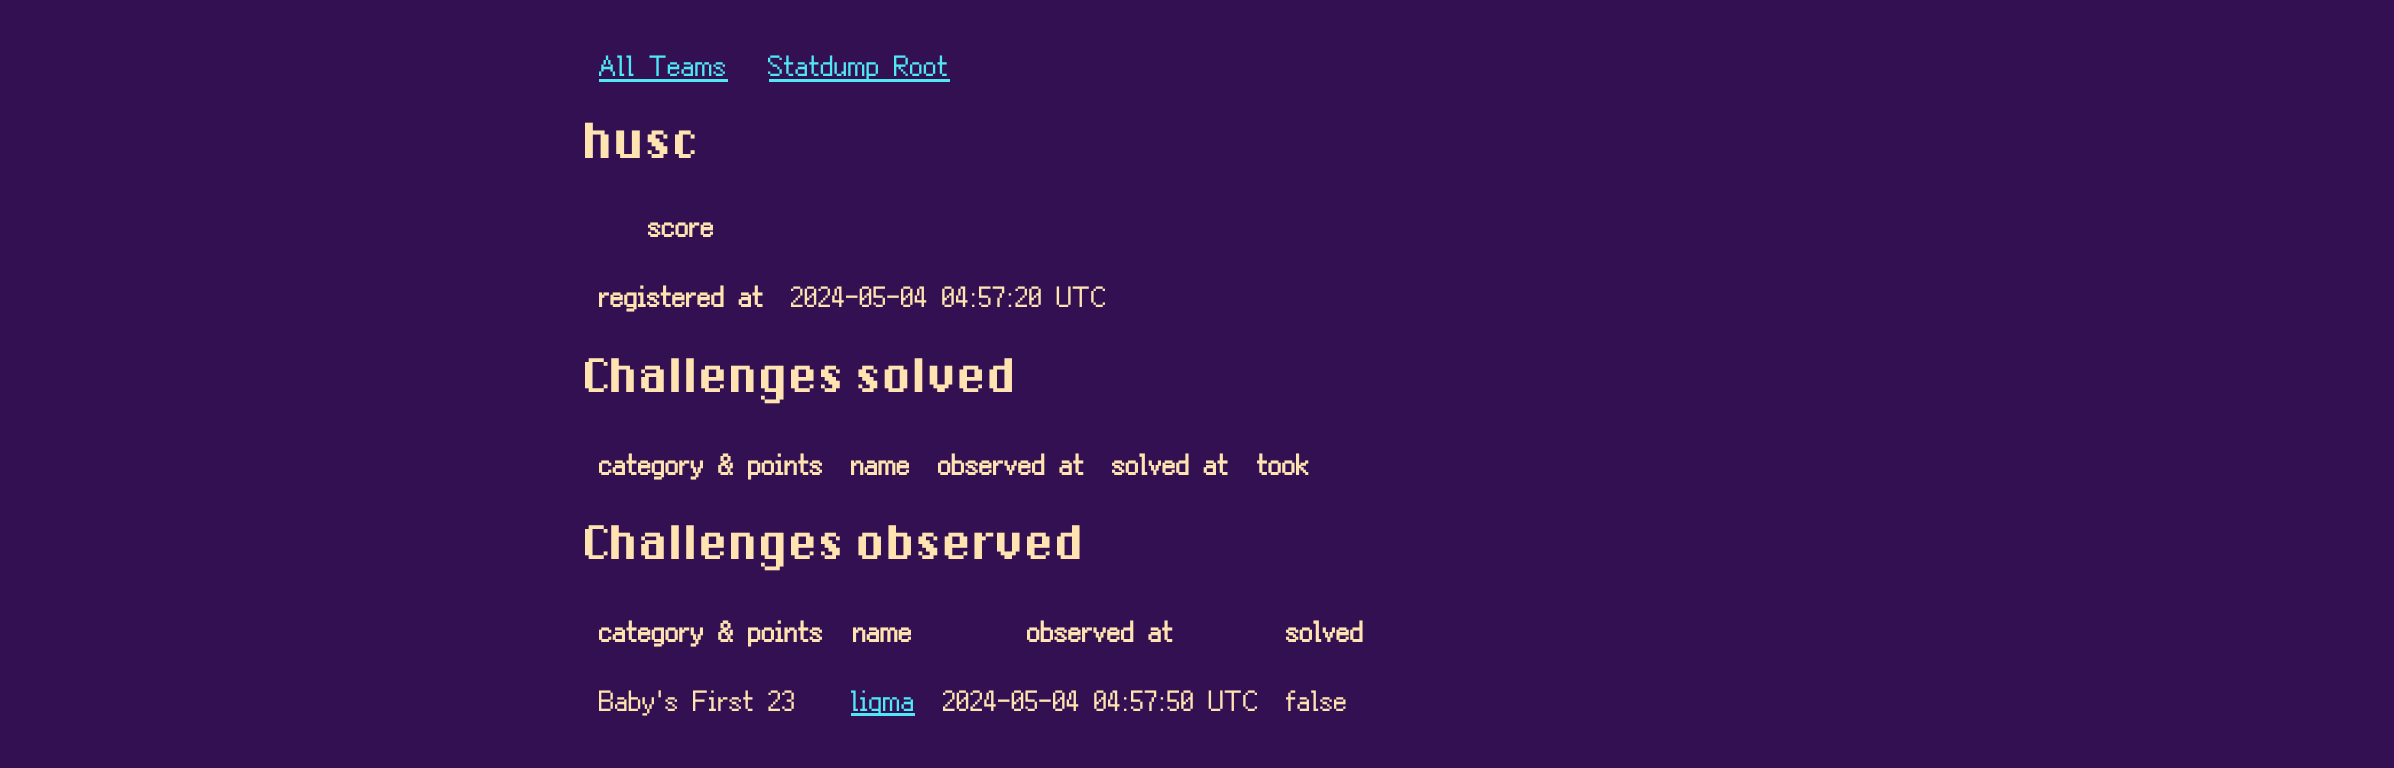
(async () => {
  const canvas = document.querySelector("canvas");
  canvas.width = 2394;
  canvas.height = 768;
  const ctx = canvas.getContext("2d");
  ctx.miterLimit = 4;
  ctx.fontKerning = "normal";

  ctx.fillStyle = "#321052";
  ctx.fillRect(0, 0, 2394, 768);
  for (const [x, y, w, h, color] of [
    [599, 79, 129, 3, "#50e7f7"],
    [769, 79, 181, 3, "#50e7f7"],
    [851, 713, 64, 3, "#50e7f7"],
  ]) {
    ctx.fillStyle = color;
    ctx.fillRect(x, y, w, h);
  }
  ctx.font = "27.5px 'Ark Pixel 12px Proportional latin'";
  ctx.fillText("All Teams", 599, 76);
  ctx.fillText("Statdump Root", 768, 76);
  ctx.font = "bold 34.5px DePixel";
  ctx.fillStyle = "#ffe4b1";
  ctx.fillText("husc", 585, 158);
  ctx.font = "bold 27.5px 'Ark Pixel 12px Proportional latin'";
  ctx.fillText("score", 648, 237);
  ctx.fillText("registered at", 599, 307);
  ctx.font = "27.5px 'Ark Pixel 12px Proportional latin'";
  ctx.fillText("2024-05-04 04:57:20 UTC", 791, 307);
  ctx.font = "bold 33px DePixel";
  ctx.fillText("Challenges solved", 585, 392);
  ctx.font = "bold 27.5px 'Ark Pixel 12px Proportional latin'";
  for (const [text, x, y] of [
    ["category & points", 599, 475],
    ["name", 851, 475],
    ["observed at", 938, 475],
    ["solved at", 1112, 475],
    ["took", 1257, 475],
  ]) {
    ctx.fillText(text, x, y);
  }
  ctx.font = "bold 33px DePixel";
  ctx.fillText("Challenges observed", 585, 559);
  ctx.font = "bold 27.5px 'Ark Pixel 12px Proportional latin'";
  for (const [text, x, y] of [
    ["category & points", 599, 642],
    ["name", 853, 642],
    ["observed at", 1027, 642],
    ["solved", 1286, 642],
  ]) {
    ctx.fillText(text, x, y);
  }
  ctx.font = "27.5px 'Ark Pixel 12px Proportional latin'";
  ctx.fillText("Baby's First 23", 599, 711);
  ctx.fillStyle = "#50e7f7";
  ctx.fillText("ligma", 851, 711);
  ctx.fillStyle = "#ffe4b1";
  ctx.fillText("2024-05-04 04:57:50 UTC", 943, 711);
  ctx.fillText("false", 1286, 711);
})();
